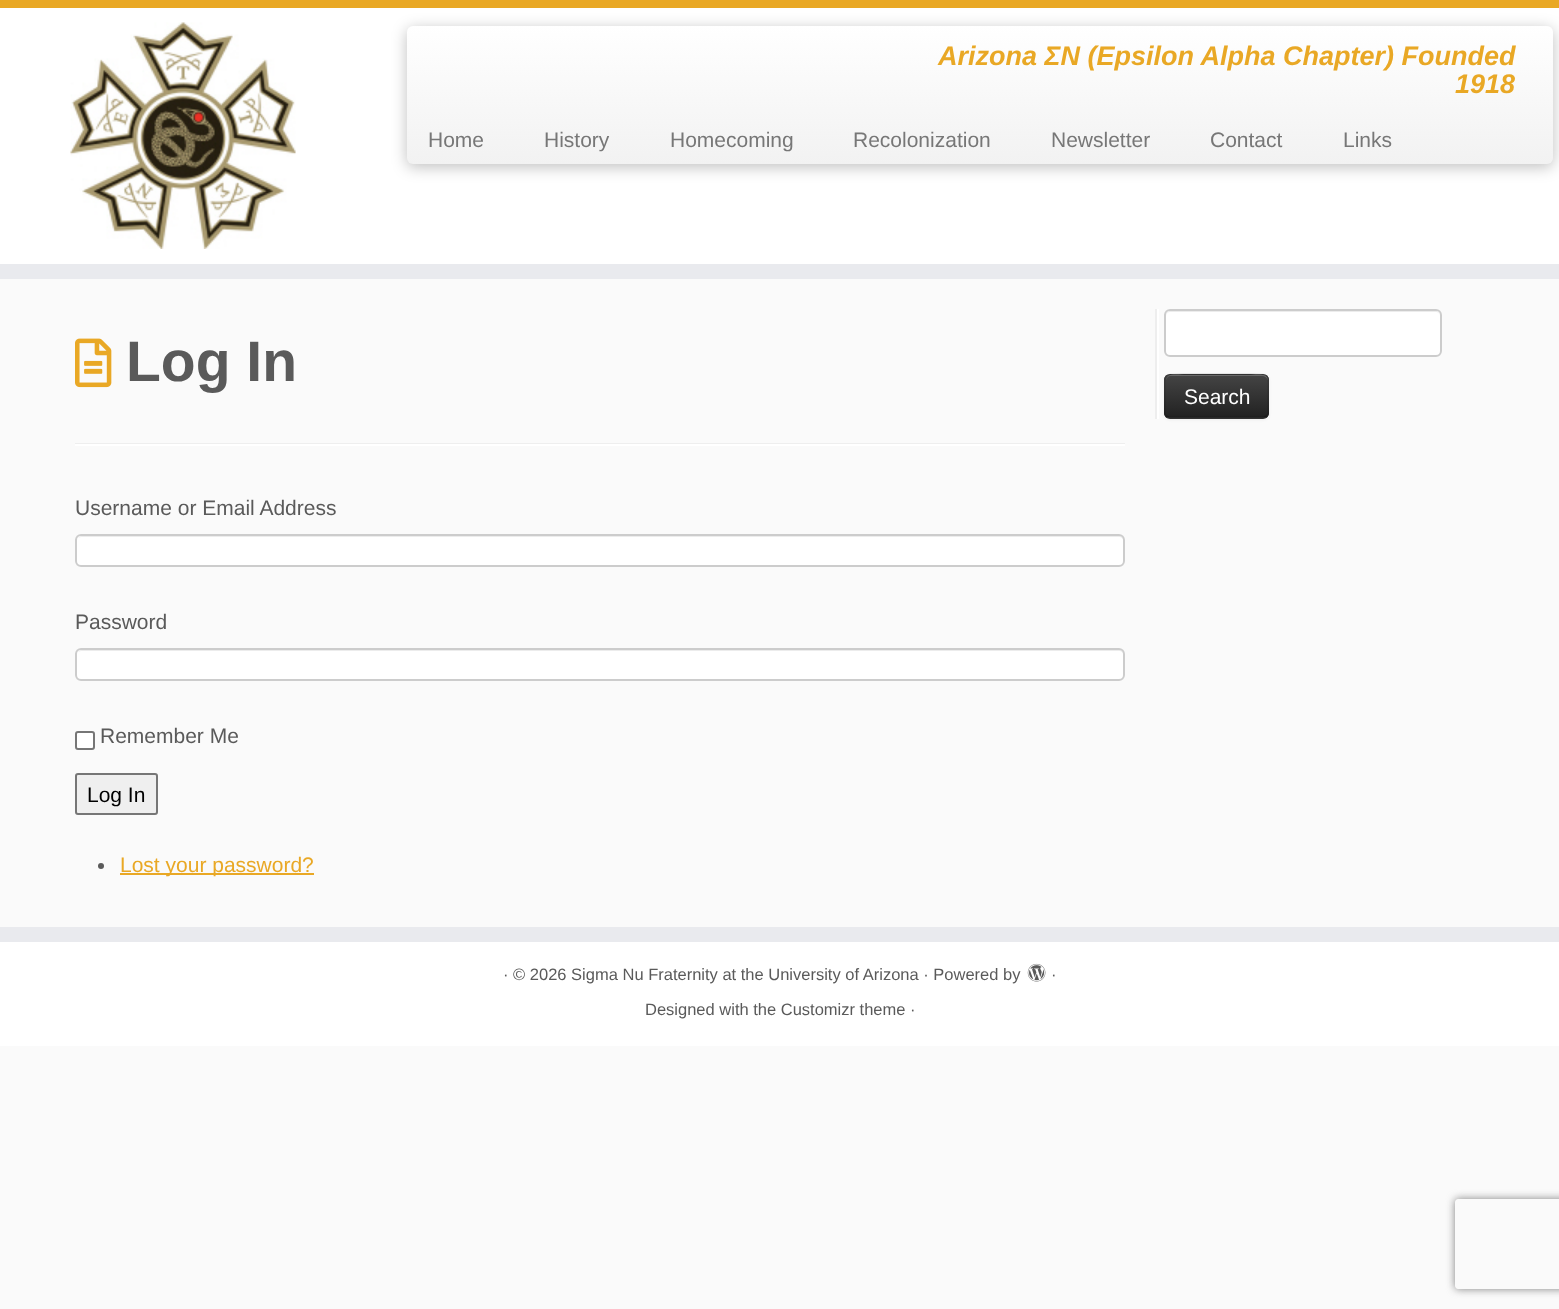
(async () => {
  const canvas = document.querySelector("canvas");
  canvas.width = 1559;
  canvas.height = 1309;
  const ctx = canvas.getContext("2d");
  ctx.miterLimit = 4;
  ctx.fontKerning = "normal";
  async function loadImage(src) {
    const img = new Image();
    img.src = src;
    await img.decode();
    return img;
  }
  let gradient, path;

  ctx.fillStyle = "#fafafa";
  ctx.fillRect(0, 0, 1559, 1309);
  for (const [x, y, w, h, color] of [
    [0, 8, 1559, 256, "#ffffff"],
    [0, 0, 1559, 8, "#e9a825"],
    [0, 264, 1559, 15, "#e9eaee"],
  ]) {
    ctx.fillStyle = color;
    ctx.fillRect(x, y, w, h);
  }
  ctx.drawImage(await loadImage("img/1.png"), 70, 22, 226, 227);
  ctx.fillStyle = "rgba(0, 0, 0, 0.25)";
  ctx.filter = "blur(7.5px)";
  ctx.beginPath();
  ctx.roundRect(407, 29, 1146, 138, 6);
  ctx.fill();
  ctx.filter = "none";
  gradient = ctx.createLinearGradient(980, 25, 980, 164);
  gradient.addColorStop(0, "#ffffff");
  gradient.addColorStop(1, "#f2f2f2");
  ctx.fillStyle = gradient;
  ctx.beginPath();
  ctx.roundRect(407, 26, 1146, 138, 6);
  ctx.fill();
  ctx.drawImage(await loadImage("img/2.png"), 75, 338, 37, 50);
  ctx.fillStyle = "#eeeeee";
  ctx.fillRect(75, 443, 1050, 1);
  ctx.fillStyle = "#ffffff";
  ctx.fillRect(75, 444, 1050, 2);
  ctx.beginPath();
  ctx.roundRect(75, 534, 1050, 33, 6);
  ctx.fill();
  ctx.fillStyle = "#ececec";
  path = new Path2D("M81 537H1119C1121 537 1124 539 1124 542V541C1124 538 1122 536 1119 536H82C80 536 79 537 78 538Z");
  ctx.fill(path);
  ctx.beginPath();
  ctx.roundRect(76, 535, 1048, 31, 5);
  ctx.strokeStyle = "#cccccc";
  ctx.lineWidth = 2;
  ctx.stroke();
  ctx.fillStyle = "#ffffff";
  ctx.beginPath();
  ctx.roundRect(75, 648, 1050, 33, 6);
  ctx.fill();
  ctx.fillStyle = "#ececec";
  path = new Path2D("M81 651H1119C1121 651 1124 653 1124 656V655C1124 652 1122 650 1119 650H82C80 650 79 651 78 652Z");
  ctx.fill(path);
  ctx.beginPath();
  ctx.roundRect(76, 649, 1048, 31, 5);
  ctx.stroke();
  ctx.fillStyle = "#ffffff";
  ctx.beginPath();
  ctx.roundRect(76, 732, 18, 17, 2);
  ctx.fill();
  ctx.strokeStyle = "#767676";
  ctx.stroke();
  ctx.fillStyle = "#efefef";
  ctx.beginPath();
  ctx.roundRect(76, 774, 81, 40, 2);
  ctx.fill();
  ctx.stroke();
  ctx.fillStyle = "#5a5a5a";
  ctx.beginPath();
  ctx.arc(101, 866, 3, 0, Math.PI * 2);
  ctx.fill();
  ctx.fillStyle = "#e9a825";
  ctx.fillRect(120, 873, 194, 2);
  ctx.fillStyle = "#eeeeee";
  ctx.fillRect(1155, 309, 2, 110);
  ctx.fillStyle = "rgba(0, 0, 0, 0.05)";
  ctx.filter = "blur(1.5px)";
  ctx.beginPath();
  ctx.roundRect(1164, 375, 105, 45, 6);
  ctx.fill();
  ctx.filter = "none";
  ctx.fillStyle = "#ffffff";
  ctx.fillRect(1157, 309, 2, 110);
  ctx.beginPath();
  ctx.roundRect(1164, 309, 278, 48, 6);
  ctx.fill();
  ctx.fillStyle = "#ececec";
  path = new Path2D("M1170 312H1436C1438 312 1440 314 1440 316C1440 313 1438 311 1435 311H1171C1168 311 1166 313 1166 316C1166 314 1168 312 1170 312Z");
  ctx.fill(path);
  ctx.beginPath();
  ctx.roundRect(1165, 310, 276, 46, 5);
  ctx.strokeStyle = "#cccccc";
  ctx.stroke();
  ctx.fillStyle = "#363636";
  ctx.beginPath();
  ctx.roundRect(1164, 374, 105, 45, 6);
  ctx.fill();
  ctx.save();
  ctx.beginPath();
  ctx.roundRect(1164, 374, 105, 45, 6);
  ctx.clip();
  gradient = ctx.createLinearGradient(1217, 375, 1217, 417);
  gradient.addColorStop(0, "#444444");
  gradient.addColorStop(1, "#222222");
  ctx.fillStyle = gradient;
  ctx.fillRect(1164, 375, 105, 42);
  ctx.restore();
  ctx.fillStyle = "rgba(255, 255, 255, 0.2)";
  path = new Path2D("M1170 376H1263C1265 376 1268 379 1268 381C1268 371 1253 375 1248 375H1186C1181 375 1166 371 1166 381C1166 379 1168 376 1170 376Z");
  ctx.fill(path);
  path = new Path2D("M1266.5 416L1263.5 417.5H1169.5L1166.5 416");
  ctx.strokeStyle = "rgba(0, 0, 0, 0.25)";
  ctx.lineWidth = 1.5;
  ctx.stroke(path);
  path = new Path2D("M1166.5 416C1164 414 1165 410 1165 407V396C1165 372 1161 374 1185.5 374H1247.5C1272 374 1268 372 1268 396V407C1268 410 1269 414 1266.5 416");
  ctx.strokeStyle = "rgba(0, 0, 0, 0.1)";
  ctx.stroke(path);
  ctx.fillStyle = "#e9eaee";
  ctx.fillRect(0, 927, 1559, 15);
  ctx.fillStyle = "#ffffff";
  ctx.fillRect(0, 942, 1559, 104);
  ctx.drawImage(await loadImage("img/3.png"), 1027, 963, 19, 19);
  ctx.save();
  path = new Path2D("M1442 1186H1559V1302H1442ZM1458 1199H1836C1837.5 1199 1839 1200.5 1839 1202V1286C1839 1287.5 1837.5 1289 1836 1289H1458C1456.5 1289 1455 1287.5 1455 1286V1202C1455 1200.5 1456.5 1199 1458 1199Z");
  ctx.clip(path, "evenodd");
  ctx.fillStyle = "#808080";
  ctx.filter = "blur(4px)";
  ctx.beginPath();
  ctx.roundRect(1455, 1199, 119, 90, 3);
  ctx.fill();
  ctx.filter = "none";
  ctx.restore();
  ctx.font = "italic bold 27px Liberation Sans";
  ctx.fillStyle = "#e9a825";
  ctx.fillText("Arizona ΣΝ (Epsilon Alpha Chapter) Founded", 938, 65);
  ctx.fillText("1918", 1455, 93);
  ctx.font = "21px Liberation Sans";
  ctx.fillStyle = "#777777";
  for (const [text, x, y] of [
    ["Home", 428, 147],
    ["History", 544, 147],
    ["Homecoming", 670, 147],
    ["Recolonization", 853, 147],
    ["Newsletter", 1051, 147],
    ["Contact", 1210, 147],
    ["Links", 1343, 147],
  ]) {
    ctx.fillText(text, x, y);
  }
  ctx.font = "bold 57px Liberation Sans";
  ctx.fillStyle = "#5a5a5a";
  ctx.fillText("Log In", 126, 381);
  ctx.font = "21px Liberation Sans";
  for (const [text, x, y] of [
    ["Username or Email Address", 75, 515],
    ["Password", 75, 629],
    ["Remember Me", 100, 743],
  ]) {
    ctx.fillText(text, x, y);
  }
  ctx.fillStyle = "#000000";
  ctx.fillText("Log In", 87, 802);
  ctx.fillStyle = "#e9a825";
  ctx.fillText("Lost your password?", 120, 872);
  ctx.fillStyle = "#ffffff";
  ctx.fillText("Search", 1184, 404);
  ctx.font = "16.5px Liberation Sans";
  ctx.fillStyle = "#5a5a5a";
  for (const [text, x, y] of [
    ["· © 2026 Sigma Nu Fraternity at the University of Arizona · Powered by", 503, 980],
    ["·", 1051, 980],
    ["Designed with the Customizr theme ·", 645, 1015],
  ]) {
    ctx.fillText(text, x, y);
  }
})();
